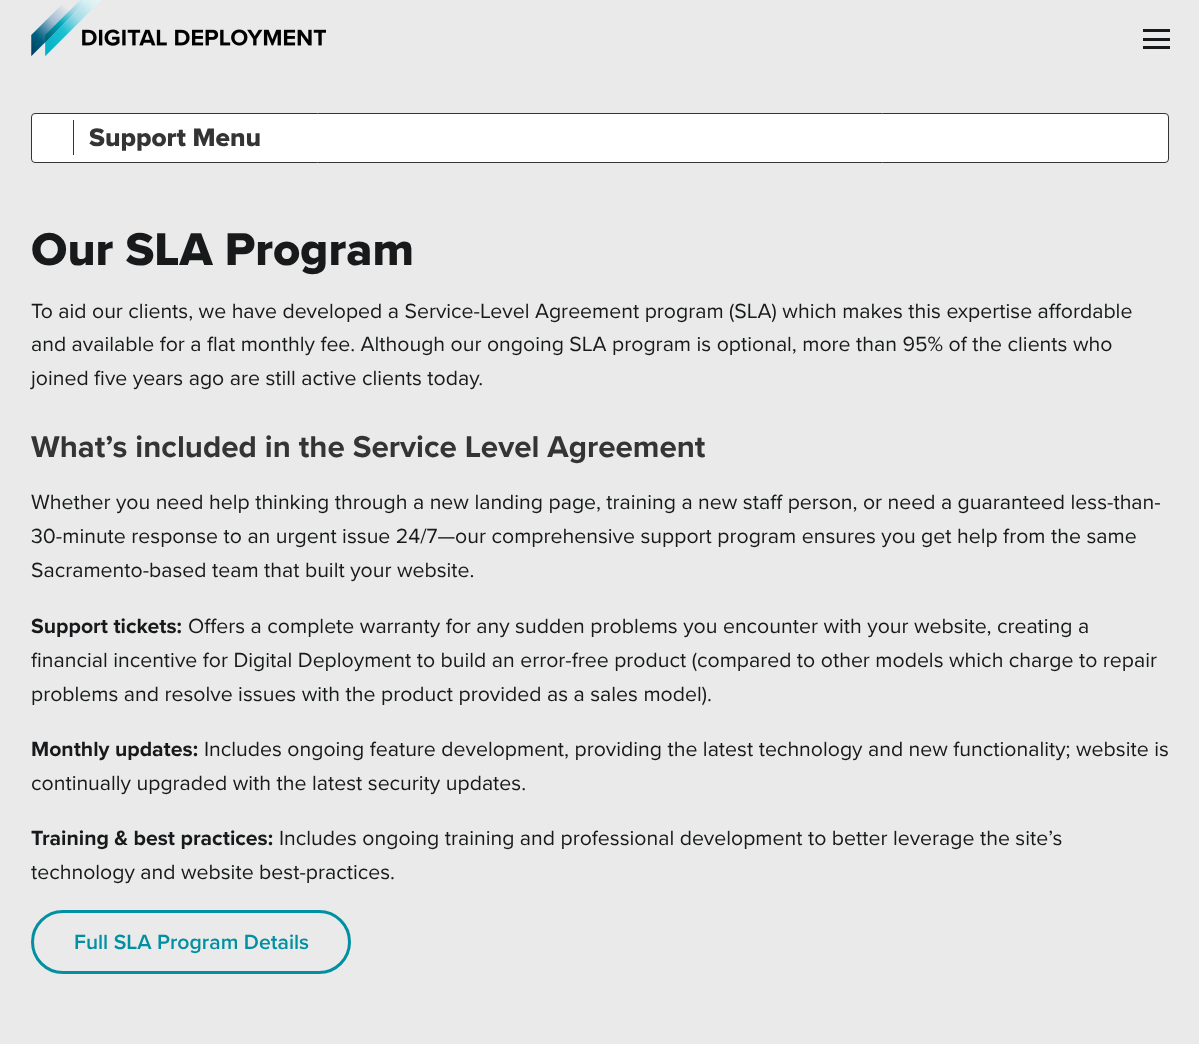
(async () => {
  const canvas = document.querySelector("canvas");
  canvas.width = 1199;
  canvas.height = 1044;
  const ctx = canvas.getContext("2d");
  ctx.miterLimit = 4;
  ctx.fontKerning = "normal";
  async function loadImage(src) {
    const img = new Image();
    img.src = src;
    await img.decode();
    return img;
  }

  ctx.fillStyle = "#eaeaea";
  ctx.fillRect(0, 0, 1199, 1044);
  ctx.drawImage(await loadImage("img/1.png"), 31, 0, 295, 56);
  for (const [x, y, w, h, color] of [
    [1143, 38, 27, 3, "#17191a"],
    [1143, 29, 27, 3, "#17191a"],
    [1143, 46, 27, 3, "#17191a"],
  ]) {
    ctx.fillStyle = color;
    ctx.fillRect(x, y, w, h);
  }
  ctx.fillStyle = "#ffffff";
  ctx.beginPath();
  ctx.roundRect(31.5, 113.5, 1137, 49, 3.5);
  ctx.fill();
  ctx.strokeStyle = "#343434";
  ctx.stroke();
  ctx.fillStyle = "#343434";
  ctx.fillRect(73, 120, 1, 35);
  ctx.beginPath();
  ctx.roundRect(32.5, 911.5, 317, 61, 30.5);
  ctx.strokeStyle = "#0090a2";
  ctx.lineWidth = 3;
  ctx.stroke();
  ctx.font = "800 26.25px Proxima Nova";
  ctx.fillText("Support Menu", 89, 146);
  ctx.font = "800 47.5px Proxima Nova";
  ctx.fillStyle = "#17191a";
  ctx.fillText("Our SLA Program", 31, 265);
  ctx.font = "21.25px Proxima Nova";
  for (const [text, x, y] of [
    ["To aid our clients, we have developed a Service-Level Agreement program (SLA) which makes this expertise affordable", 31, 318],
    ["and available for a flat monthly fee. Although our ongoing SLA program is optional, more than 95% of the clients who", 31, 351],
    ["joined five years ago are still active clients today.", 31, 385],
  ]) {
    ctx.fillText(text, x, y);
  }
  ctx.font = "bold 31.25px Proxima Nova";
  ctx.fillStyle = "#343434";
  ctx.fillText("What’s included in the Service Level Agreement", 31, 457);
  ctx.font = "21.25px Proxima Nova";
  ctx.fillStyle = "#17191a";
  for (const [text, x, y] of [
    ["Whether you need help thinking through a new landing page, training a new staff person, or need a guaranteed less-than-", 31, 509],
    ["30-minute response to an urgent issue 24/7—our comprehensive support program ensures you get help from the same", 31, 543],
    ["Sacramento-based team that built your website.", 31, 577],
  ]) {
    ctx.fillText(text, x, y);
  }
  ctx.font = "bold 21.25px Proxima Nova";
  ctx.fillText("Support tickets:", 31, 633);
  ctx.font = "21.25px Proxima Nova";
  for (const [text, x, y] of [
    ["Offers a complete warranty for any sudden problems you encounter with your website, creating a", 188, 633],
    ["financial incentive for Digital Deployment to build an error-free product (compared to other models which charge to repair", 31, 667],
    ["problems and resolve issues with the product provided as a sales model).", 31, 701],
  ]) {
    ctx.fillText(text, x, y);
  }
  ctx.font = "bold 21.25px Proxima Nova";
  ctx.fillText("Monthly updates:", 31, 756);
  ctx.font = "21.25px Proxima Nova";
  ctx.fillText("Includes ongoing feature development, providing the latest technology and new functionality; website is", 204, 756);
  ctx.fillText("continually upgraded with the latest security updates.", 31, 790);
  ctx.font = "bold 21.25px Proxima Nova";
  ctx.fillText("Training & best practices:", 31, 845);
  ctx.font = "21.25px Proxima Nova";
  ctx.fillText("Includes ongoing training and professional development to better leverage the site’s", 279, 845);
  ctx.fillText("technology and website best-practices.", 31, 879);
  ctx.font = "600 21.25px Proxima Nova";
  ctx.fillStyle = "#0090a2";
  ctx.fillText("Full SLA Program Details", 74, 949);
})();
